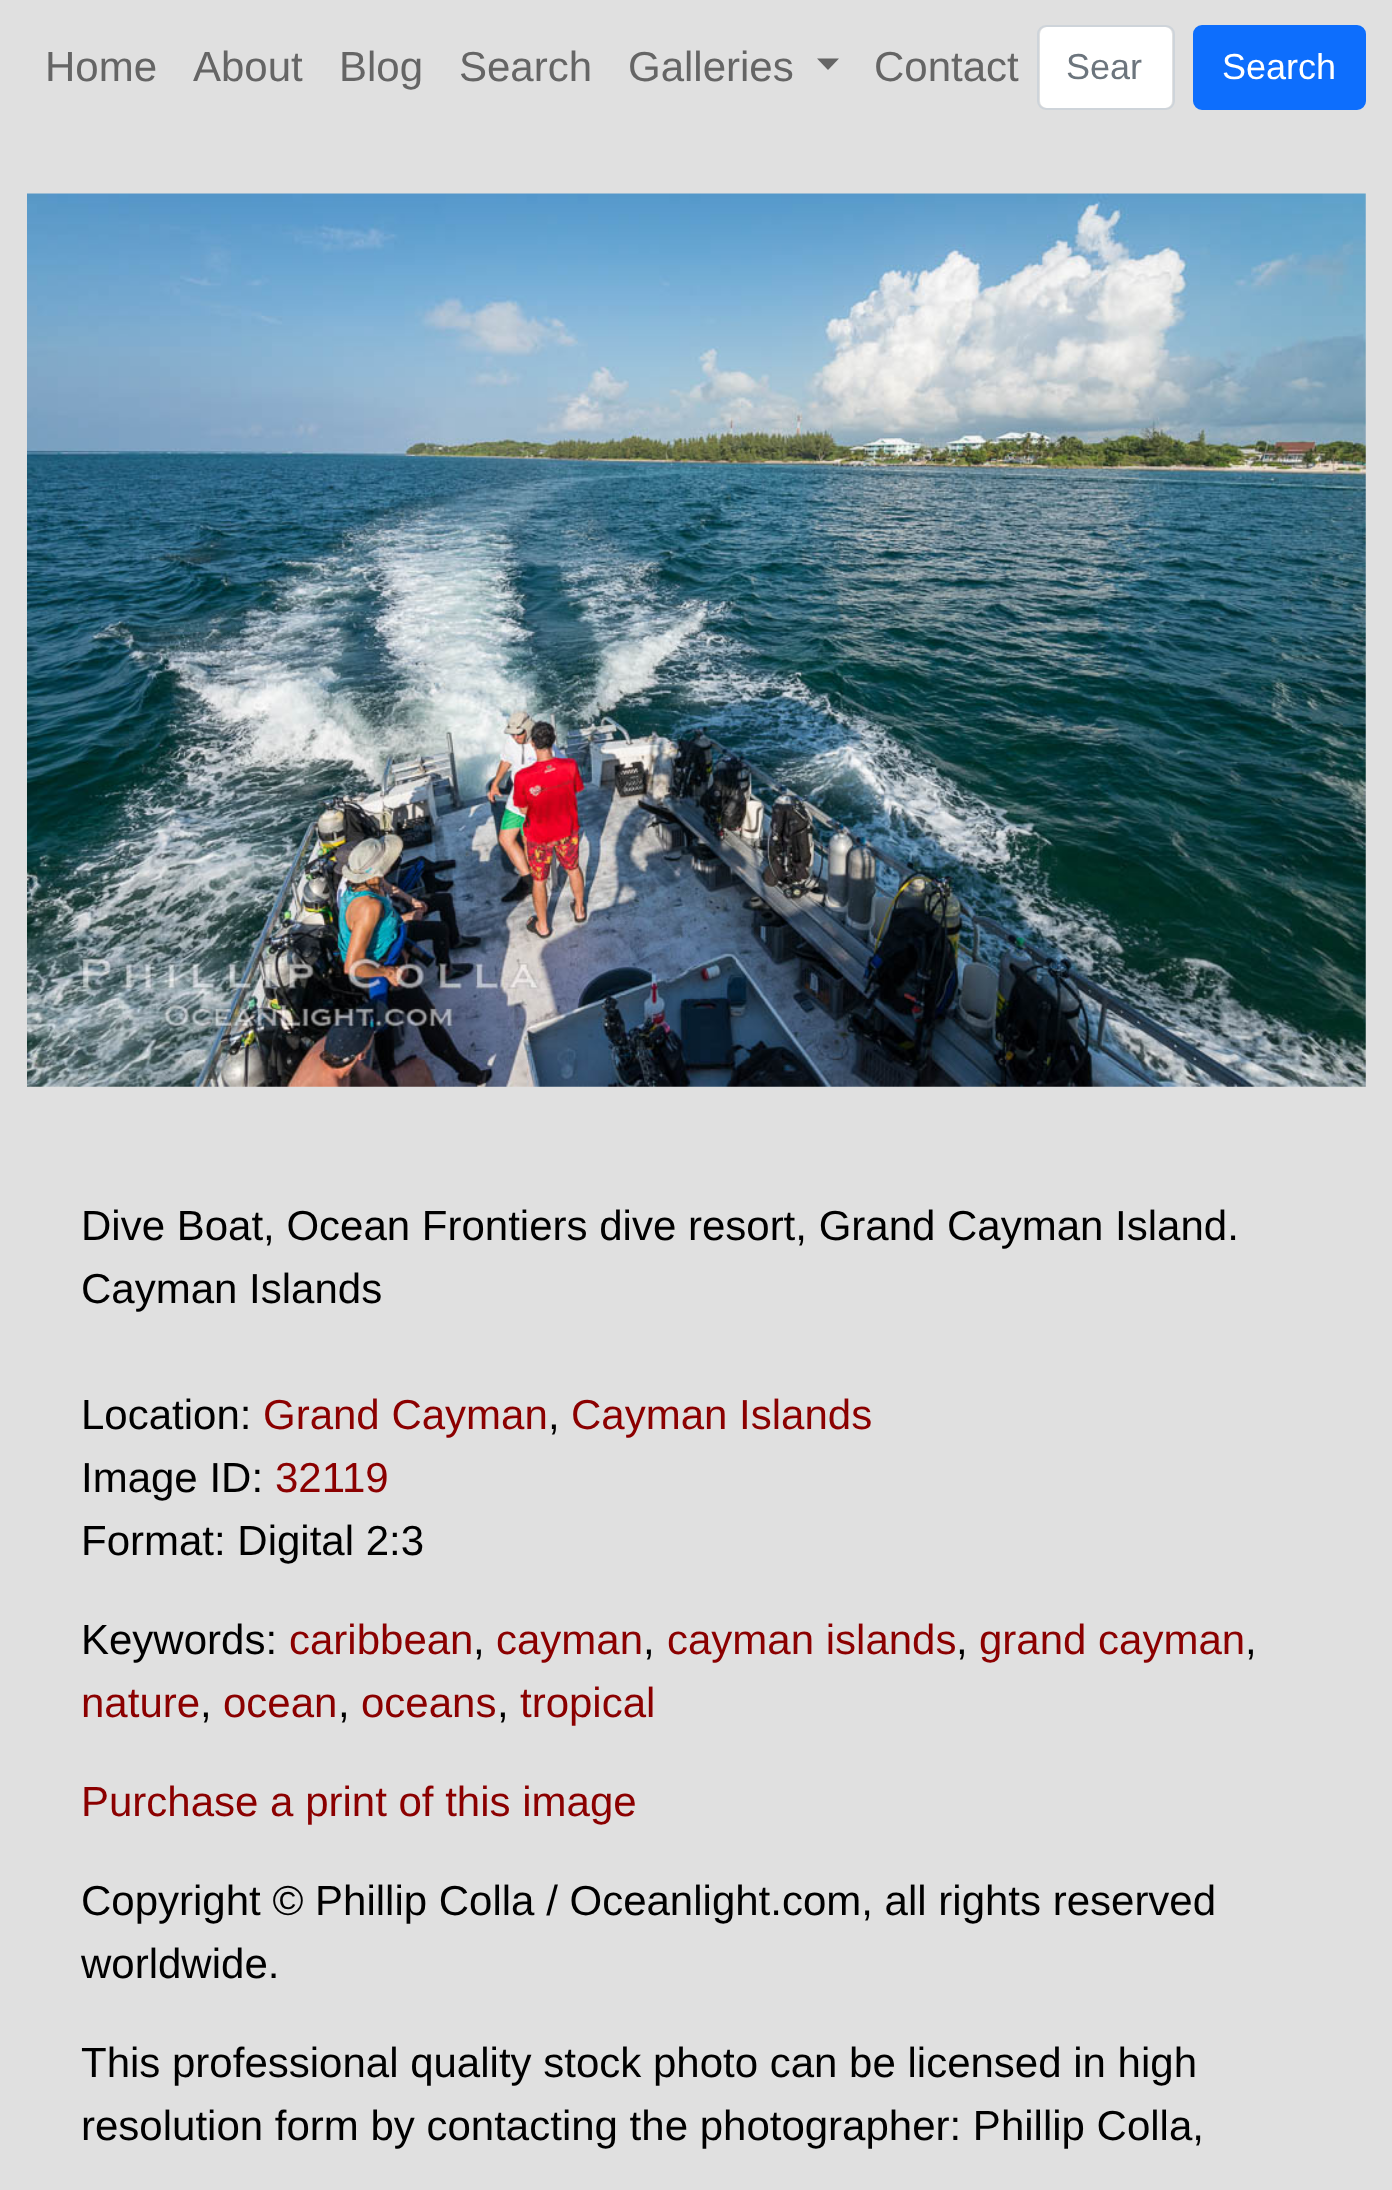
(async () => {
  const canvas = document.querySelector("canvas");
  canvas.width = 1392;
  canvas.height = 2190;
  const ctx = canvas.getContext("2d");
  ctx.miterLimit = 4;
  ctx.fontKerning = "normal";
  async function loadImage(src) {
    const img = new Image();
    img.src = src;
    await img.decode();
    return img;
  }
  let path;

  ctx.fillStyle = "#e0e0e0";
  ctx.fillRect(0, 0, 1392, 2190);
  ctx.fillStyle = "#656565";
  path = new Path2D("M817 58.5H839L828 70Z");
  ctx.fill(path);
  ctx.fillStyle = "#ffffff";
  ctx.beginPath();
  ctx.roundRect(1040, 27, 132, 81, 7);
  ctx.fill();
  ctx.beginPath();
  ctx.roundRect(1038, 26, 136, 83, 8);
  ctx.strokeStyle = "#ced4da";
  ctx.lineWidth = 2;
  ctx.stroke();
  ctx.fillStyle = "#0d6efd";
  ctx.beginPath();
  ctx.roundRect(1194, 26, 171, 83, 8);
  ctx.fill();
  ctx.strokeStyle = "#0d6efd";
  ctx.stroke();
  ctx.drawImage(await loadImage("img/1.png"), 27, 193, 1339, 894);
  ctx.font = "42px Liberation Sans";
  ctx.fillStyle = "#656565";
  for (const [text, x, y] of [
    ["Home", 45, 81],
    ["About", 193, 81],
    ["Blog", 339, 81],
    ["Search", 459, 81],
    ["Galleries", 628, 81],
    ["Contact", 874, 81],
  ]) {
    ctx.fillText(text, x, y);
  }
  ctx.font = "36px Liberation Sans";
  ctx.fillStyle = "#6c757d";
  ctx.fillText("Sear", 1066, 79);
  ctx.fillStyle = "#ffffff";
  ctx.fillText("Search", 1222, 79);
  ctx.font = "42px Liberation Sans";
  ctx.fillStyle = "#000000";
  for (const [text, x, y] of [
    ["Dive Boat, Ocean Frontiers dive resort, Grand Cayman Island.", 81, 1240],
    ["Cayman Islands", 81, 1303],
    ["Location:", 81, 1429],
  ]) {
    ctx.fillText(text, x, y);
  }
  ctx.fillStyle = "#8b0000";
  ctx.fillText("Grand Cayman", 263, 1429);
  ctx.fillStyle = "#000000";
  ctx.fillText(",", 548, 1429);
  ctx.fillStyle = "#8b0000";
  ctx.fillText("Cayman Islands", 571, 1429);
  ctx.fillStyle = "#000000";
  ctx.fillText("Image ID:", 81, 1492);
  ctx.fillStyle = "#8b0000";
  ctx.fillText("32119", 275, 1492);
  ctx.fillStyle = "#000000";
  ctx.fillText("Format: Digital 2:3", 81, 1555);
  ctx.fillText("Keywords:", 81, 1654);
  ctx.fillStyle = "#8b0000";
  ctx.fillText("caribbean", 289, 1654);
  ctx.fillStyle = "#000000";
  ctx.fillText(",", 473, 1654);
  ctx.fillStyle = "#8b0000";
  ctx.fillText("cayman", 496, 1654);
  ctx.fillStyle = "#000000";
  ctx.fillText(",", 643, 1654);
  ctx.fillStyle = "#8b0000";
  ctx.fillText("cayman islands", 667, 1654);
  ctx.fillStyle = "#000000";
  ctx.fillText(",", 956, 1654);
  ctx.fillStyle = "#8b0000";
  ctx.fillText("grand cayman", 979, 1654);
  ctx.fillStyle = "#000000";
  ctx.fillText(",", 1245, 1654);
  ctx.fillStyle = "#8b0000";
  ctx.fillText("nature", 81, 1717);
  ctx.fillStyle = "#000000";
  ctx.fillText(",", 200, 1717);
  ctx.fillStyle = "#8b0000";
  ctx.fillText("ocean", 223, 1717);
  ctx.fillStyle = "#000000";
  ctx.fillText(",", 338, 1717);
  ctx.fillStyle = "#8b0000";
  ctx.fillText("oceans", 361, 1717);
  ctx.fillStyle = "#000000";
  ctx.fillText(",", 497, 1717);
  ctx.fillStyle = "#8b0000";
  ctx.fillText("tropical", 520, 1717);
  ctx.fillText("Purchase a print of this image", 81, 1816);
  ctx.fillStyle = "#000000";
  for (const [text, x, y] of [
    ["Copyright © Phillip Colla / Oceanlight.com, all rights reserved", 81, 1915],
    ["worldwide.", 81, 1978],
    ["This professional quality stock photo can be licensed in high", 81, 2077],
    ["resolution form by contacting the photographer: Phillip Colla,", 81, 2140],
  ]) {
    ctx.fillText(text, x, y);
  }
})();
